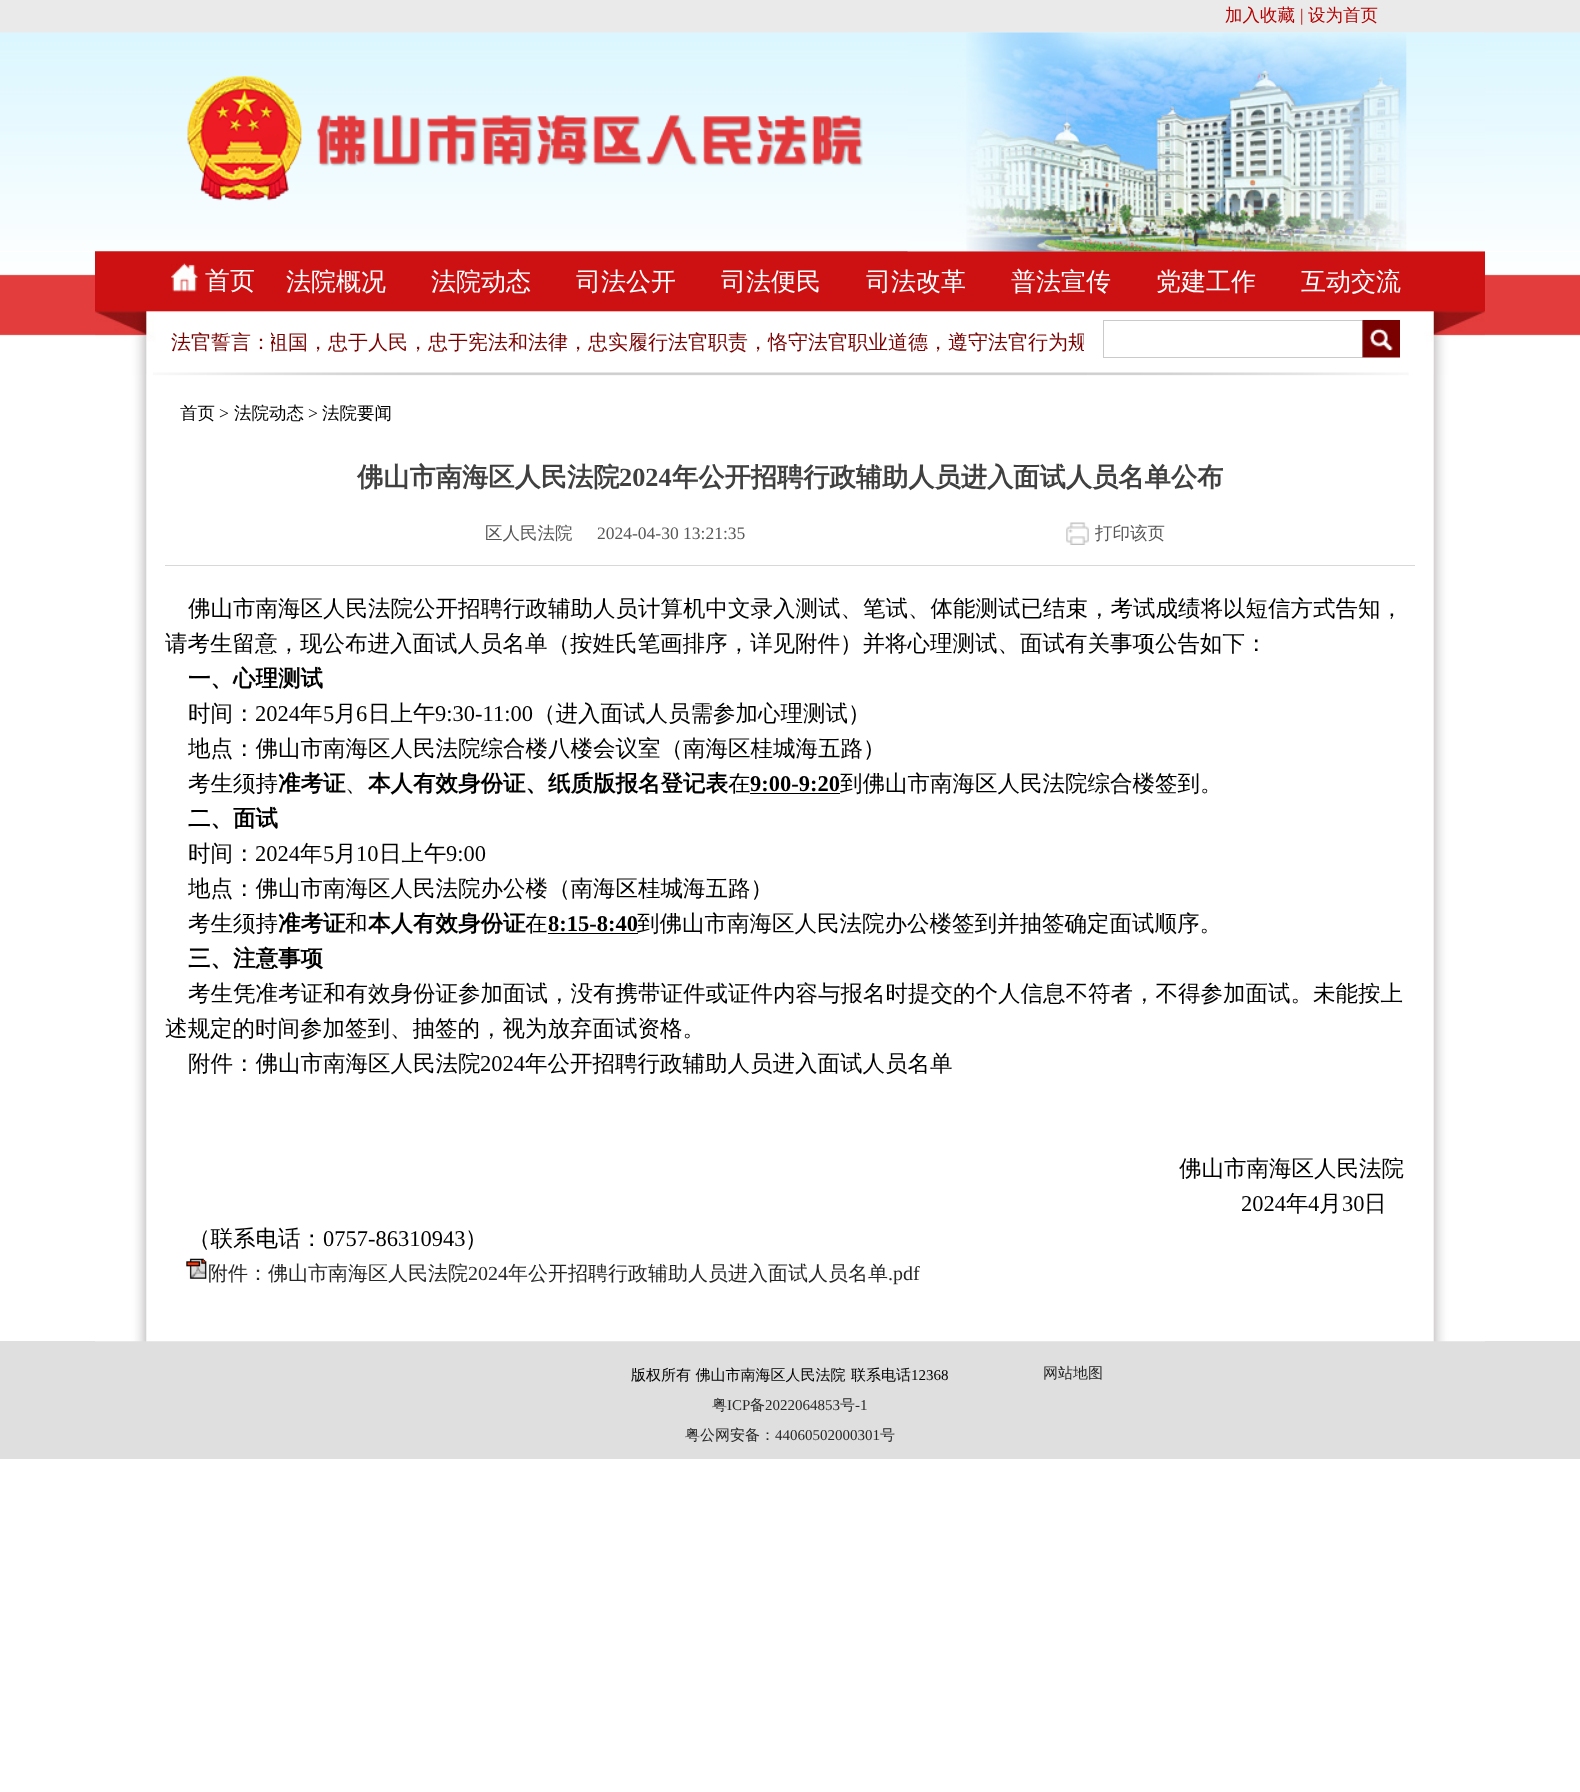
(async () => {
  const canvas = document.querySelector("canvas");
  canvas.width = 1580;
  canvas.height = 1792;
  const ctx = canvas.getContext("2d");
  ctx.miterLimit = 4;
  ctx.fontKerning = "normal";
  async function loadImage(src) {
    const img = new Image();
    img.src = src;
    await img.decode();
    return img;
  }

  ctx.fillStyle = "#ffffff";
  ctx.fillRect(0, 0, 1580, 1792);
  ctx.fillStyle = "#eaeaea";
  ctx.fillRect(0, 0, 1580, 33);
  ctx.drawImage(await loadImage("img/1.png"), 0, 32, 1580, 219);
  ctx.drawImage(await loadImage("img/2.png"), 187, 76, 676, 125);
  ctx.drawImage(await loadImage("img/4.png"), 0, 252, 1580, 84);
  ctx.drawImage(await loadImage("img/5.png"), 95, 251, 1390, 124);
  ctx.drawImage(await loadImage("img/3.png"), 907, 32, 578, 220);
  ctx.drawImage(await loadImage("img/6.png"), 171, 263, 29, 31);
  ctx.strokeStyle = "#cacaca";
  ctx.strokeRect(1103.5, 320.5, 259, 37);
  ctx.drawImage(await loadImage("img/7.png"), 1362, 320, 38, 38);
  ctx.fillStyle = "#dfdfdf";
  ctx.fillRect(0, 1341, 1580, 118);
  ctx.drawImage(await loadImage("img/9.png"), 95, 375, 1390, 967);
  ctx.drawImage(await loadImage("img/8.png"), 153, 372, 1256, 4);
  ctx.fillStyle = "#d8d8d8";
  ctx.fillRect(165, 565, 1250, 1);
  ctx.drawImage(await loadImage("img/10.png"), 1066, 522, 23, 23);
  ctx.fillStyle = "#000000";
  ctx.fillRect(750, 793, 90, 1);
  ctx.fillRect(548, 933, 90, 1);
  ctx.drawImage(await loadImage("img/11.png"), 186, 1258, 21, 21);
  ctx.font = "500 17.5px WenQuanYi Zen Hei";
  ctx.fillStyle = "#b50000";
  ctx.fillText("加入收藏", 1225, 21);
  ctx.font = "17.5px Liberation Serif";
  ctx.fillText("|", 1300, 21);
  ctx.font = "500 17.5px WenQuanYi Zen Hei";
  ctx.fillText("设为首页", 1308, 21);
  ctx.font = "500 25px WenQuanYi Zen Hei";
  ctx.fillStyle = "#ffffff";
  for (const [text, x, y] of [
    ["首页", 205, 289],
    ["法院概况", 286, 290],
    ["法院动态", 431, 290],
    ["司法公开", 576, 290],
    ["司法便民", 721, 290],
    ["司法改革", 866, 290],
    ["普法宣传", 1011, 290],
    ["党建工作", 1156, 290],
    ["互动交流", 1301, 290],
  ]) {
    ctx.fillText(text, x, y);
  }
  ctx.font = "500 20px WenQuanYi Zen Hei";
  ctx.fillStyle = "#7a0000";
  ctx.fillText("法官誓言：", 171, 349);
  ctx.save();
  ctx.beginPath();
  ctx.rect(271, 314, 813, 57);
  ctx.clip();
  ctx.fillText("祖国，忠于人民，忠于宪法和法律，忠实履行法官职责，恪守法官职业道德，遵守法官行为规", 268, 349);
  ctx.restore();
  ctx.font = "500 17.5px WenQuanYi Zen Hei";
  ctx.fillStyle = "#000000";
  ctx.fillText("首页", 180, 419);
  ctx.font = "17.5px Liberation Serif";
  ctx.fillText(">", 219, 419);
  ctx.font = "500 17.5px WenQuanYi Zen Hei";
  ctx.fillText("法院动态", 234, 419);
  ctx.font = "17.5px Liberation Serif";
  ctx.fillText(">", 308, 419);
  ctx.font = "500 17.5px WenQuanYi Zen Hei";
  ctx.fillText("法院要闻", 322, 419);
  ctx.font = "bold 26.25px WenQuanYi Zen Hei";
  ctx.fillStyle = "#404040";
  ctx.fillText("佛山市南海区人民法院", 357, 486);
  ctx.font = "bold 26.25px Liberation Serif";
  ctx.fillText("2024", 619, 486);
  ctx.font = "bold 26.25px WenQuanYi Zen Hei";
  ctx.fillText("年公开招聘行政辅助人员进入面试人员名单公布", 672, 486);
  ctx.font = "500 17.5px WenQuanYi Zen Hei";
  ctx.fillStyle = "#575757";
  ctx.fillText("区人民法院", 485, 539);
  ctx.font = "17.5px Liberation Serif";
  ctx.fillText("2024-04-30 13:21:35", 597, 539);
  ctx.font = "500 17.5px WenQuanYi Zen Hei";
  ctx.fillText("打印该页", 1095, 539);
  ctx.font = "500 22.5px WenQuanYi Zen Hei";
  ctx.fillStyle = "#000000";
  ctx.fillText("佛山市南海区人民法院公开招聘行政辅助人员计算机中文录入测试、笔试、体能测试已结束，考试成绩将以短信方式告知，", 188, 616);
  ctx.fillText("请考生留意，现公布进入面试人员名单（按姓氏笔画排序，详见附件）并将心理测试、面试有关事项公告如下：", 165, 651);
  ctx.font = "bold 22.5px WenQuanYi Zen Hei";
  ctx.fillText("一、心理测试", 188, 686);
  ctx.font = "500 22.5px WenQuanYi Zen Hei";
  ctx.fillText("时间：", 188, 721);
  ctx.font = "22.5px Liberation Serif";
  ctx.fillText("2024", 255, 721);
  ctx.font = "500 22.5px WenQuanYi Zen Hei";
  ctx.fillText("年", 300, 721);
  ctx.font = "22.5px Liberation Serif";
  ctx.fillText("5", 323, 721);
  ctx.font = "500 22.5px WenQuanYi Zen Hei";
  ctx.fillText("月", 334, 721);
  ctx.font = "22.5px Liberation Serif";
  ctx.fillText("6", 356, 721);
  ctx.font = "500 22.5px WenQuanYi Zen Hei";
  ctx.fillText("日上午", 368, 721);
  ctx.font = "22.5px Liberation Serif";
  ctx.fillText("9:30-11:00", 435, 721);
  ctx.font = "500 22.5px WenQuanYi Zen Hei";
  for (const [text, x, y] of [
    ["（进入面试人员需参加心理测试）", 533, 721],
    ["地点：佛山市南海区人民法院综合楼八楼会议室（南海区桂城海五路）", 188, 756],
    ["考生须持", 188, 791],
  ]) {
    ctx.fillText(text, x, y);
  }
  ctx.font = "bold 22.5px WenQuanYi Zen Hei";
  ctx.fillText("准考证", 278, 791);
  ctx.font = "500 22.5px WenQuanYi Zen Hei";
  ctx.fillText("、", 345, 791);
  ctx.font = "bold 22.5px WenQuanYi Zen Hei";
  ctx.fillText("本人有效身份证、纸质版报名登记表", 368, 791);
  ctx.font = "500 22.5px WenQuanYi Zen Hei";
  ctx.fillText("在", 728, 791);
  ctx.font = "bold 22.5px Liberation Serif";
  ctx.fillText("9:00-9:20", 750, 791);
  ctx.font = "500 22.5px WenQuanYi Zen Hei";
  ctx.fillText("到佛山市南海区人民法院综合楼签到。", 840, 791);
  ctx.font = "bold 22.5px WenQuanYi Zen Hei";
  ctx.fillText("二、面试", 188, 826);
  ctx.font = "500 22.5px WenQuanYi Zen Hei";
  ctx.fillText("时间：", 188, 861);
  ctx.font = "22.5px Liberation Serif";
  ctx.fillText("2024", 255, 861);
  ctx.font = "500 22.5px WenQuanYi Zen Hei";
  ctx.fillText("年", 300, 861);
  ctx.font = "22.5px Liberation Serif";
  ctx.fillText("5", 323, 861);
  ctx.font = "500 22.5px WenQuanYi Zen Hei";
  ctx.fillText("月", 334, 861);
  ctx.font = "22.5px Liberation Serif";
  ctx.fillText("10", 356, 861);
  ctx.font = "500 22.5px WenQuanYi Zen Hei";
  ctx.fillText("日上午", 379, 861);
  ctx.font = "22.5px Liberation Serif";
  ctx.fillText("9:00", 446, 861);
  ctx.font = "500 22.5px WenQuanYi Zen Hei";
  ctx.fillText("地点：佛山市南海区人民法院办公楼（南海区桂城海五路）", 188, 896);
  ctx.fillText("考生须持", 188, 931);
  ctx.font = "bold 22.5px WenQuanYi Zen Hei";
  ctx.fillText("准考证", 278, 931);
  ctx.font = "500 22.5px WenQuanYi Zen Hei";
  ctx.fillText("和", 345, 931);
  ctx.font = "bold 22.5px WenQuanYi Zen Hei";
  ctx.fillText("本人有效身份证", 368, 931);
  ctx.font = "500 22.5px WenQuanYi Zen Hei";
  ctx.fillText("在", 525, 931);
  ctx.font = "bold 22.5px Liberation Serif";
  ctx.fillText("8:15-8:40", 548, 931);
  ctx.font = "500 22.5px WenQuanYi Zen Hei";
  ctx.fillText("到佛山市南海区人民法院办公楼签到并抽签确定面试顺序。", 637, 931);
  ctx.font = "bold 22.5px WenQuanYi Zen Hei";
  ctx.fillText("三、注意事项", 188, 966);
  ctx.font = "500 22.5px WenQuanYi Zen Hei";
  for (const [text, x, y] of [
    ["考生凭准考证和有效身份证参加面试，没有携带证件或证件内容与报名时提交的个人信息不符者，不得参加面试。未能按上", 188, 1001],
    ["述规定的时间参加签到、抽签的，视为放弃面试资格。", 165, 1036],
    ["附件：佛山市南海区人民法院", 188, 1071],
  ]) {
    ctx.fillText(text, x, y);
  }
  ctx.font = "22.5px Liberation Serif";
  ctx.fillText("2024", 480, 1071);
  ctx.font = "500 22.5px WenQuanYi Zen Hei";
  ctx.fillText("年公开招聘行政辅助人员进入面试人员名单", 525, 1071);
  ctx.fillText("佛山市南海区人民法院", 1179, 1176);
  ctx.font = "22.5px Liberation Serif";
  ctx.fillText("2024", 1241, 1211);
  ctx.font = "500 22.5px WenQuanYi Zen Hei";
  ctx.fillText("年", 1286, 1211);
  ctx.font = "22.5px Liberation Serif";
  ctx.fillText("4", 1308, 1211);
  ctx.font = "500 22.5px WenQuanYi Zen Hei";
  ctx.fillText("月", 1319, 1211);
  ctx.font = "22.5px Liberation Serif";
  ctx.fillText("30", 1342, 1211);
  ctx.font = "500 22.5px WenQuanYi Zen Hei";
  ctx.fillText("日", 1364, 1211);
  ctx.fillText("（联系电话：", 188, 1246);
  ctx.font = "22.5px Liberation Serif";
  ctx.fillText("0757-86310943", 323, 1246);
  ctx.font = "500 22.5px WenQuanYi Zen Hei";
  ctx.fillText("）", 465, 1246);
  ctx.font = "500 20px WenQuanYi Zen Hei";
  ctx.fillStyle = "#272727";
  ctx.fillText("附件：佛山市南海区人民法院", 208, 1280);
  ctx.font = "20px Liberation Serif";
  ctx.fillText("2024", 468, 1280);
  ctx.font = "500 20px WenQuanYi Zen Hei";
  ctx.fillText("年公开招聘行政辅助人员进入面试人员名单", 508, 1280);
  ctx.font = "20px Liberation Serif";
  ctx.fillText(".pdf", 888, 1280);
  ctx.font = "500 15px WenQuanYi Zen Hei";
  ctx.fillStyle = "#000000";
  ctx.fillText("版权所有 佛山市南海区人民法院", 631, 1380);
  ctx.fillText("联系电话", 851, 1380);
  ctx.font = "15px Liberation Serif";
  ctx.fillText("12368", 911, 1380);
  ctx.font = "500 15px WenQuanYi Zen Hei";
  ctx.fillStyle = "#272727";
  ctx.fillText("粤", 712, 1410);
  ctx.font = "15px Liberation Serif";
  ctx.fillText("ICP", 727, 1410);
  ctx.font = "500 15px WenQuanYi Zen Hei";
  ctx.fillText("备", 750, 1410);
  ctx.font = "15px Liberation Serif";
  ctx.fillText("2022064853", 765, 1410);
  ctx.font = "500 15px WenQuanYi Zen Hei";
  ctx.fillText("号", 840, 1410);
  ctx.font = "15px Liberation Serif";
  ctx.fillText("-1", 855, 1410);
  ctx.font = "500 15px WenQuanYi Zen Hei";
  ctx.fillText("网站地图", 1043, 1378);
  ctx.fillText("粤公网安备：", 685, 1440);
  ctx.font = "15px Liberation Serif";
  ctx.fillText("44060502000301", 775, 1440);
  ctx.font = "500 15px WenQuanYi Zen Hei";
  ctx.fillText("号", 880, 1440);
})();
